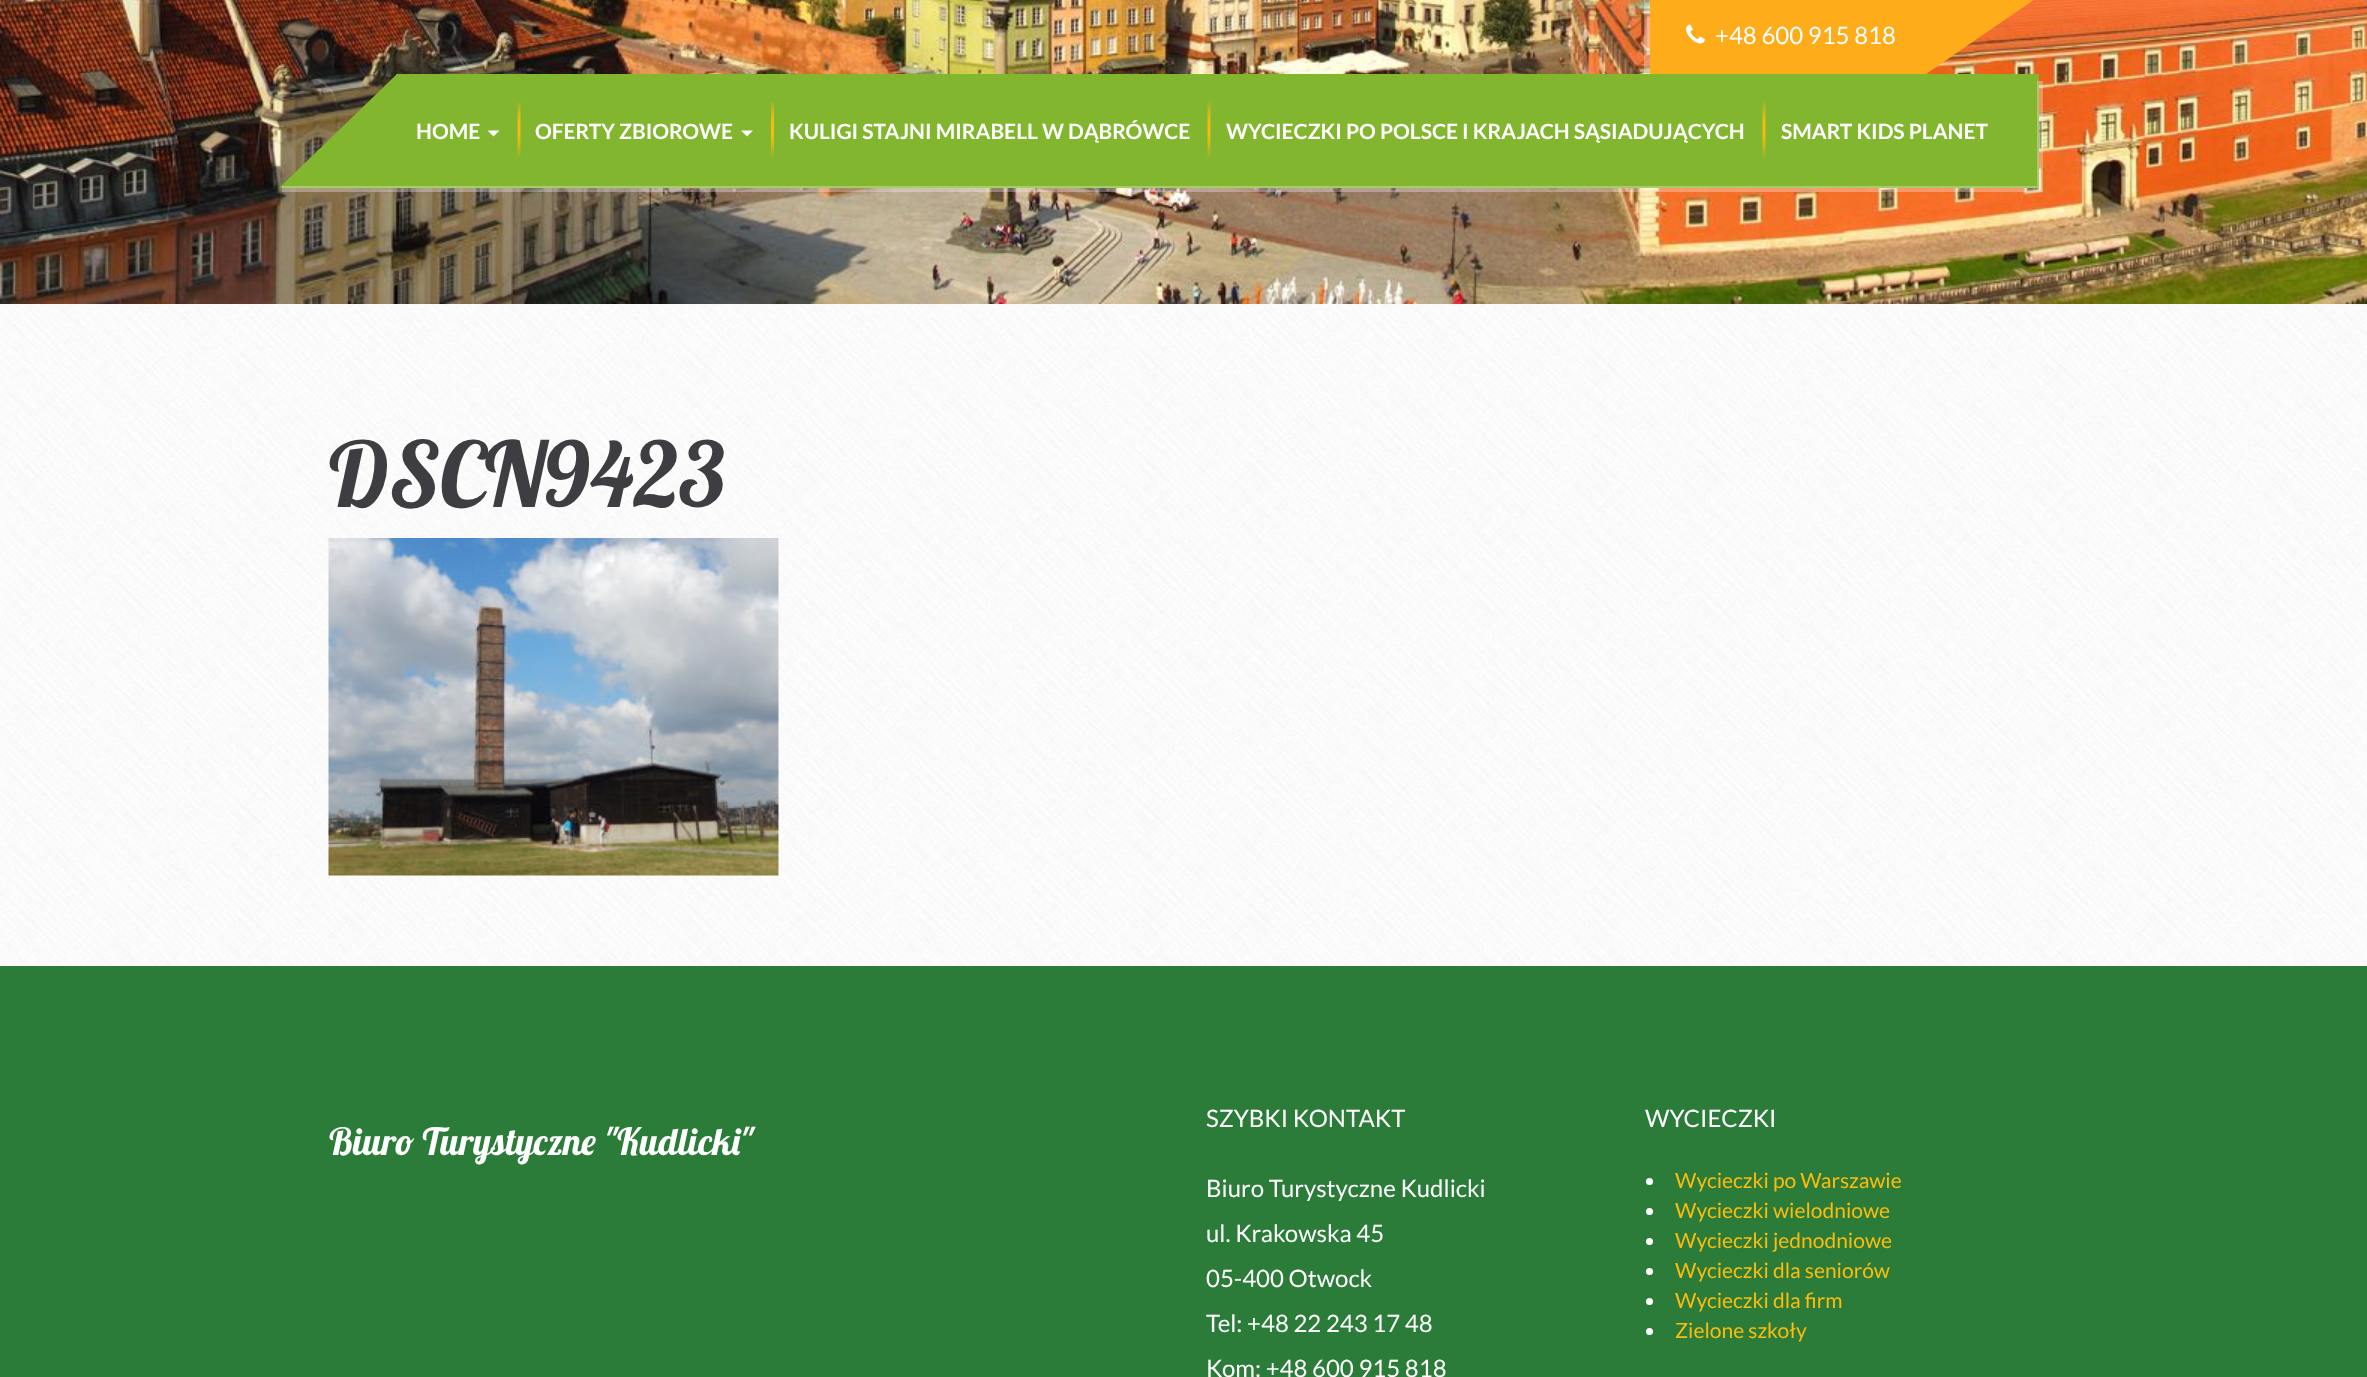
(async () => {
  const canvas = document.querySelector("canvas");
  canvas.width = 2367;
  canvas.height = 1377;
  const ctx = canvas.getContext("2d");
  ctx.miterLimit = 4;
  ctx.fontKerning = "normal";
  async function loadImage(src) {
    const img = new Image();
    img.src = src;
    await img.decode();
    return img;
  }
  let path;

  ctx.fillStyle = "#ffffff";
  ctx.fillRect(0, 0, 2367, 1377);
  ctx.drawImage(await loadImage("img/1.png"), 0, 305, 2367, 661);
  ctx.fillStyle = "#f9f9f9";
  ctx.fillRect(0, 304, 2367, 1);
  ctx.drawImage(await loadImage("img/2.png"), 0, 0, 2367, 304);
  ctx.fillStyle = "rgba(255, 255, 255, 0.3)";
  ctx.fillRect(1644, 0, 6, 74);
  ctx.fillStyle = "#ffac1b";
  ctx.fillRect(1650, 0, 276, 74);
  ctx.drawImage(await loadImage("img/3.png"), 1686, 24, 19, 20);
  path = new Path2D("M1926-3H2038L1926 74Z");
  ctx.fill(path);
  ctx.fillStyle = "#83b62f";
  ctx.fillRect(396, 74, 1643, 114);
  ctx.fillStyle = "rgba(255, 255, 255, 0.3)";
  path = new Path2D("M404 186V192H2043V81H2037V186Z");
  ctx.fill(path);
  ctx.fillStyle = "#83b62f";
  path = new Path2D("M396 188H279L396 75Z");
  ctx.fill(path);
  ctx.fillStyle = "#ffffff";
  path = new Path2D("M487.5 130.5H499.5L493.5 136.5Z");
  ctx.fill(path);
  ctx.drawImage(await loadImage("img/4.png"), 517, 103, 4, 54);
  path = new Path2D("M741 130.5H753L747 136.5Z");
  ctx.fill(path);
  ctx.drawImage(await loadImage("img/5.png"), 771, 103, 3, 54);
  ctx.drawImage(await loadImage("img/4.png"), 1207, 103, 4, 54);
  ctx.drawImage(await loadImage("img/4.png"), 1762, 103, 4, 54);
  ctx.fillStyle = "rgba(255, 255, 255, 0.3)";
  ctx.fillRect(282, 186, 122, 6);
  ctx.drawImage(await loadImage("img/6.png"), 328, 538, 451, 338);
  ctx.fillStyle = "#2b7c39";
  ctx.fillRect(0, 966, 2367, 411);
  ctx.fillStyle = "#ffffff";
  ctx.beginPath();
  ctx.arc(1649.5, 1181.5, 3.5, 0, Math.PI * 2);
  ctx.fill();
  ctx.beginPath();
  ctx.arc(1649.5, 1211.5, 3.5, 0, Math.PI * 2);
  ctx.fill();
  ctx.beginPath();
  ctx.arc(1649.5, 1241.5, 3.5, 0, Math.PI * 2);
  ctx.fill();
  ctx.beginPath();
  ctx.arc(1649.5, 1271.5, 3.5, 0, Math.PI * 2);
  ctx.fill();
  ctx.beginPath();
  ctx.arc(1649.5, 1301.5, 3.5, 0, Math.PI * 2);
  ctx.fill();
  ctx.beginPath();
  ctx.arc(1649.5, 1331.5, 3.5, 0, Math.PI * 2);
  ctx.fill();
  ctx.font = "24px Lato";
  ctx.fillText("+48 600 915 818", 1715, 44);
  ctx.font = "bold 21px Lato";
  for (const [text, x, y] of [
    ["HOME", 416, 139],
    ["OFERTY ZBIOROWE", 535, 139],
    ["KULIGI STAJNI MIRABELL W DĄBRÓWCE", 789, 139],
    ["WYCIECZKI PO POLSCE I KRAJACH SĄSIADUJĄCYCH", 1226, 139],
    ["SMART KIDS PLANET", 1781, 139],
  ]) {
    ctx.fillText(text, x, y);
  }
  ctx.font = "90px Lobster";
  ctx.fillStyle = "#3e3e42";
  ctx.fillText("DSCN9423", 329, 507);
  ctx.font = "37.5px Lobster";
  ctx.fillStyle = "#ffffff";
  ctx.fillText("Biuro Turystyczne \"Kudlicki\"", 329, 1155);
  ctx.font = "24px Lato";
  for (const [text, x, y] of [
    ["SZYBKI KONTAKT", 1206, 1127],
    ["Biuro Turystyczne Kudlicki", 1206, 1197],
    ["ul. Krakowska 45", 1206, 1242],
    ["05-400 Otwock", 1206, 1287],
    ["Tel: +48 22 243 17 48", 1206, 1332],
    ["Kom: +48 600 915 818", 1206, 1377],
    ["WYCIECZKI", 1645, 1127],
  ]) {
    ctx.fillText(text, x, y);
  }
  ctx.font = "21px Lato";
  ctx.fillStyle = "#fdbc0d";
  for (const [text, x, y] of [
    ["Wycieczki po Warszawie", 1675, 1188],
    ["Wycieczki wielodniowe", 1675, 1218],
    ["Wycieczki jednodniowe", 1675, 1248],
    ["Wycieczki dla seniorów", 1675, 1278],
    ["Wycieczki dla firm", 1675, 1308],
    ["Zielone szkoły", 1675, 1338],
  ]) {
    ctx.fillText(text, x, y);
  }
})();
